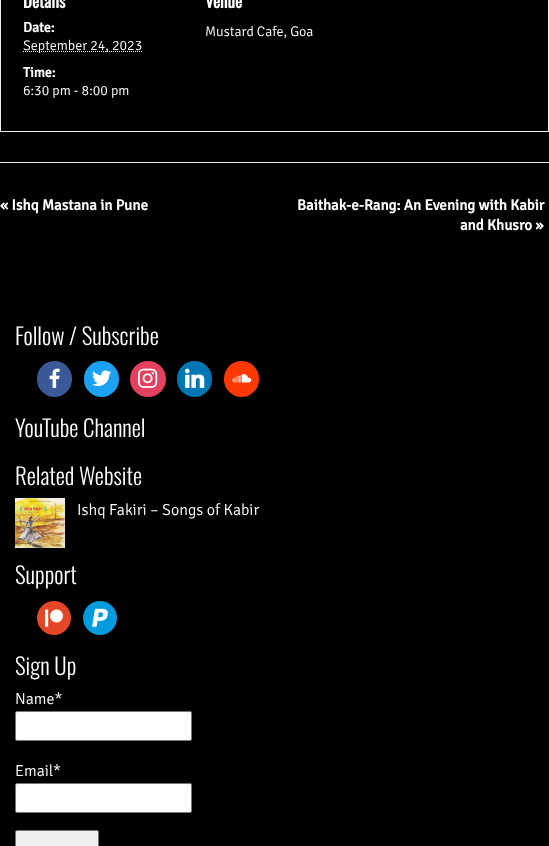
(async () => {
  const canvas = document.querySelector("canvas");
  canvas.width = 549;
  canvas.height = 846;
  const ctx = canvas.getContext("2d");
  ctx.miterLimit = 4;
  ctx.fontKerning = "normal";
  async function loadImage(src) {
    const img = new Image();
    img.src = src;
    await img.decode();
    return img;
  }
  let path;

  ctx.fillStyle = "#000000";
  ctx.fillRect(0, 0, 549, 846);
  ctx.strokeStyle = "#eeeeee";
  ctx.strokeRect(0.5, -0.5, 548, 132);
  path = new Path2D("M23 51.5H142");
  ctx.strokeStyle = "#ffffff";
  ctx.setLineDash([1, 1]);
  ctx.stroke(path);
  ctx.fillStyle = "#e5e5e5";
  ctx.fillRect(0, 162, 549, 1);
  ctx.fillStyle = "#3b5998";
  ctx.beginPath();
  ctx.roundRect(37, 361, 35, 36, 17.5);
  ctx.fill();
  ctx.drawImage(await loadImage("img/1.png"), 49, 368, 11, 20);
  ctx.fillStyle = "#1da1f2";
  ctx.beginPath();
  ctx.roundRect(84, 361, 35, 36, 17.5);
  ctx.fill();
  ctx.drawImage(await loadImage("img/2.png"), 92, 370, 20, 17);
  ctx.fillStyle = "#e4405f";
  ctx.beginPath();
  ctx.arc(148, 379, 18, 0, Math.PI * 2);
  ctx.fill();
  ctx.drawImage(await loadImage("img/3.png"), 138, 368, 20, 20);
  ctx.fillStyle = "#0077b5";
  ctx.beginPath();
  ctx.roundRect(177, 361, 35, 36, 17.5);
  ctx.fill();
  ctx.drawImage(await loadImage("img/4.png"), 185, 368, 20, 20);
  ctx.fillStyle = "#fe3801";
  ctx.beginPath();
  ctx.roundRect(224, 361, 35, 36, 17.5);
  ctx.fill();
  ctx.drawImage(await loadImage("img/5.png"), 232, 374, 20, 9);
  ctx.drawImage(await loadImage("img/6.png"), 15, 498, 50, 50);
  ctx.fillStyle = "#e44727";
  ctx.beginPath();
  ctx.arc(54, 618, 17, 0, Math.PI * 2);
  ctx.fill();
  ctx.drawImage(await loadImage("img/7.png"), 45, 609, 18, 18);
  ctx.fillStyle = "#009cde";
  ctx.beginPath();
  ctx.arc(100, 618, 17, 0, Math.PI * 2);
  ctx.fill();
  ctx.drawImage(await loadImage("img/8.png"), 92, 608, 16, 19);
  ctx.fillStyle = "#ffffff";
  ctx.beginPath();
  ctx.roundRect(15.5, 711.5, 176, 29, 1.5);
  ctx.fill();
  ctx.strokeStyle = "#767676";
  ctx.setLineDash([]);
  ctx.stroke();
  ctx.beginPath();
  ctx.roundRect(15.5, 783.5, 176, 29, 1.5);
  ctx.fill();
  ctx.stroke();
  ctx.fillStyle = "#efefef";
  ctx.beginPath();
  ctx.roundRect(15.5, 830.5, 83, 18, 1.5);
  ctx.fill();
  ctx.stroke();
  ctx.font = "bold 17px Oswald";
  ctx.fillStyle = "#ffffff";
  ctx.fillText("Details", 23, 8);
  ctx.font = "bold 14px Signika";
  ctx.fillText("Date:", 23, 32);
  ctx.font = "300 14px Signika";
  ctx.fillText("September 24, 2023", 23, 50);
  ctx.font = "bold 14px Signika";
  ctx.fillText("Time:", 23, 77);
  ctx.font = "300 14px Signika";
  ctx.fillText("6:30 pm - 8:00 pm", 23, 95);
  ctx.font = "bold 17px Oswald";
  ctx.fillText("Venue", 205, 8);
  ctx.font = "300 14px Signika";
  ctx.fillText("Mustard Cafe, Goa", 205, 36);
  ctx.font = "bold 15px Signika";
  for (const [text, x, y] of [
    ["« Ishq Mastana in Pune", 0, 210],
    ["Baithak-e-Rang: An Evening with Kabir", 297, 210],
    ["and Khusro »", 460, 230],
  ]) {
    ctx.fillText(text, x, y);
  }
  ctx.font = "300 23px Oswald";
  for (const [text, x, y] of [
    ["Follow / Subscribe", 15, 345],
    ["YouTube Channel", 15, 437],
    ["Related Website", 15, 485],
  ]) {
    ctx.fillText(text, x, y);
  }
  ctx.font = "300 16px Signika";
  ctx.fillText("Ishq Fakiri – Songs of Kabir", 77, 515);
  ctx.font = "300 23px Oswald";
  ctx.fillText("Support", 15, 584);
  ctx.fillText("Sign Up", 15, 675);
  ctx.font = "300 16px Signika";
  ctx.fillText("Name*", 15, 704);
  ctx.fillText("Email*", 15, 776);
})();
